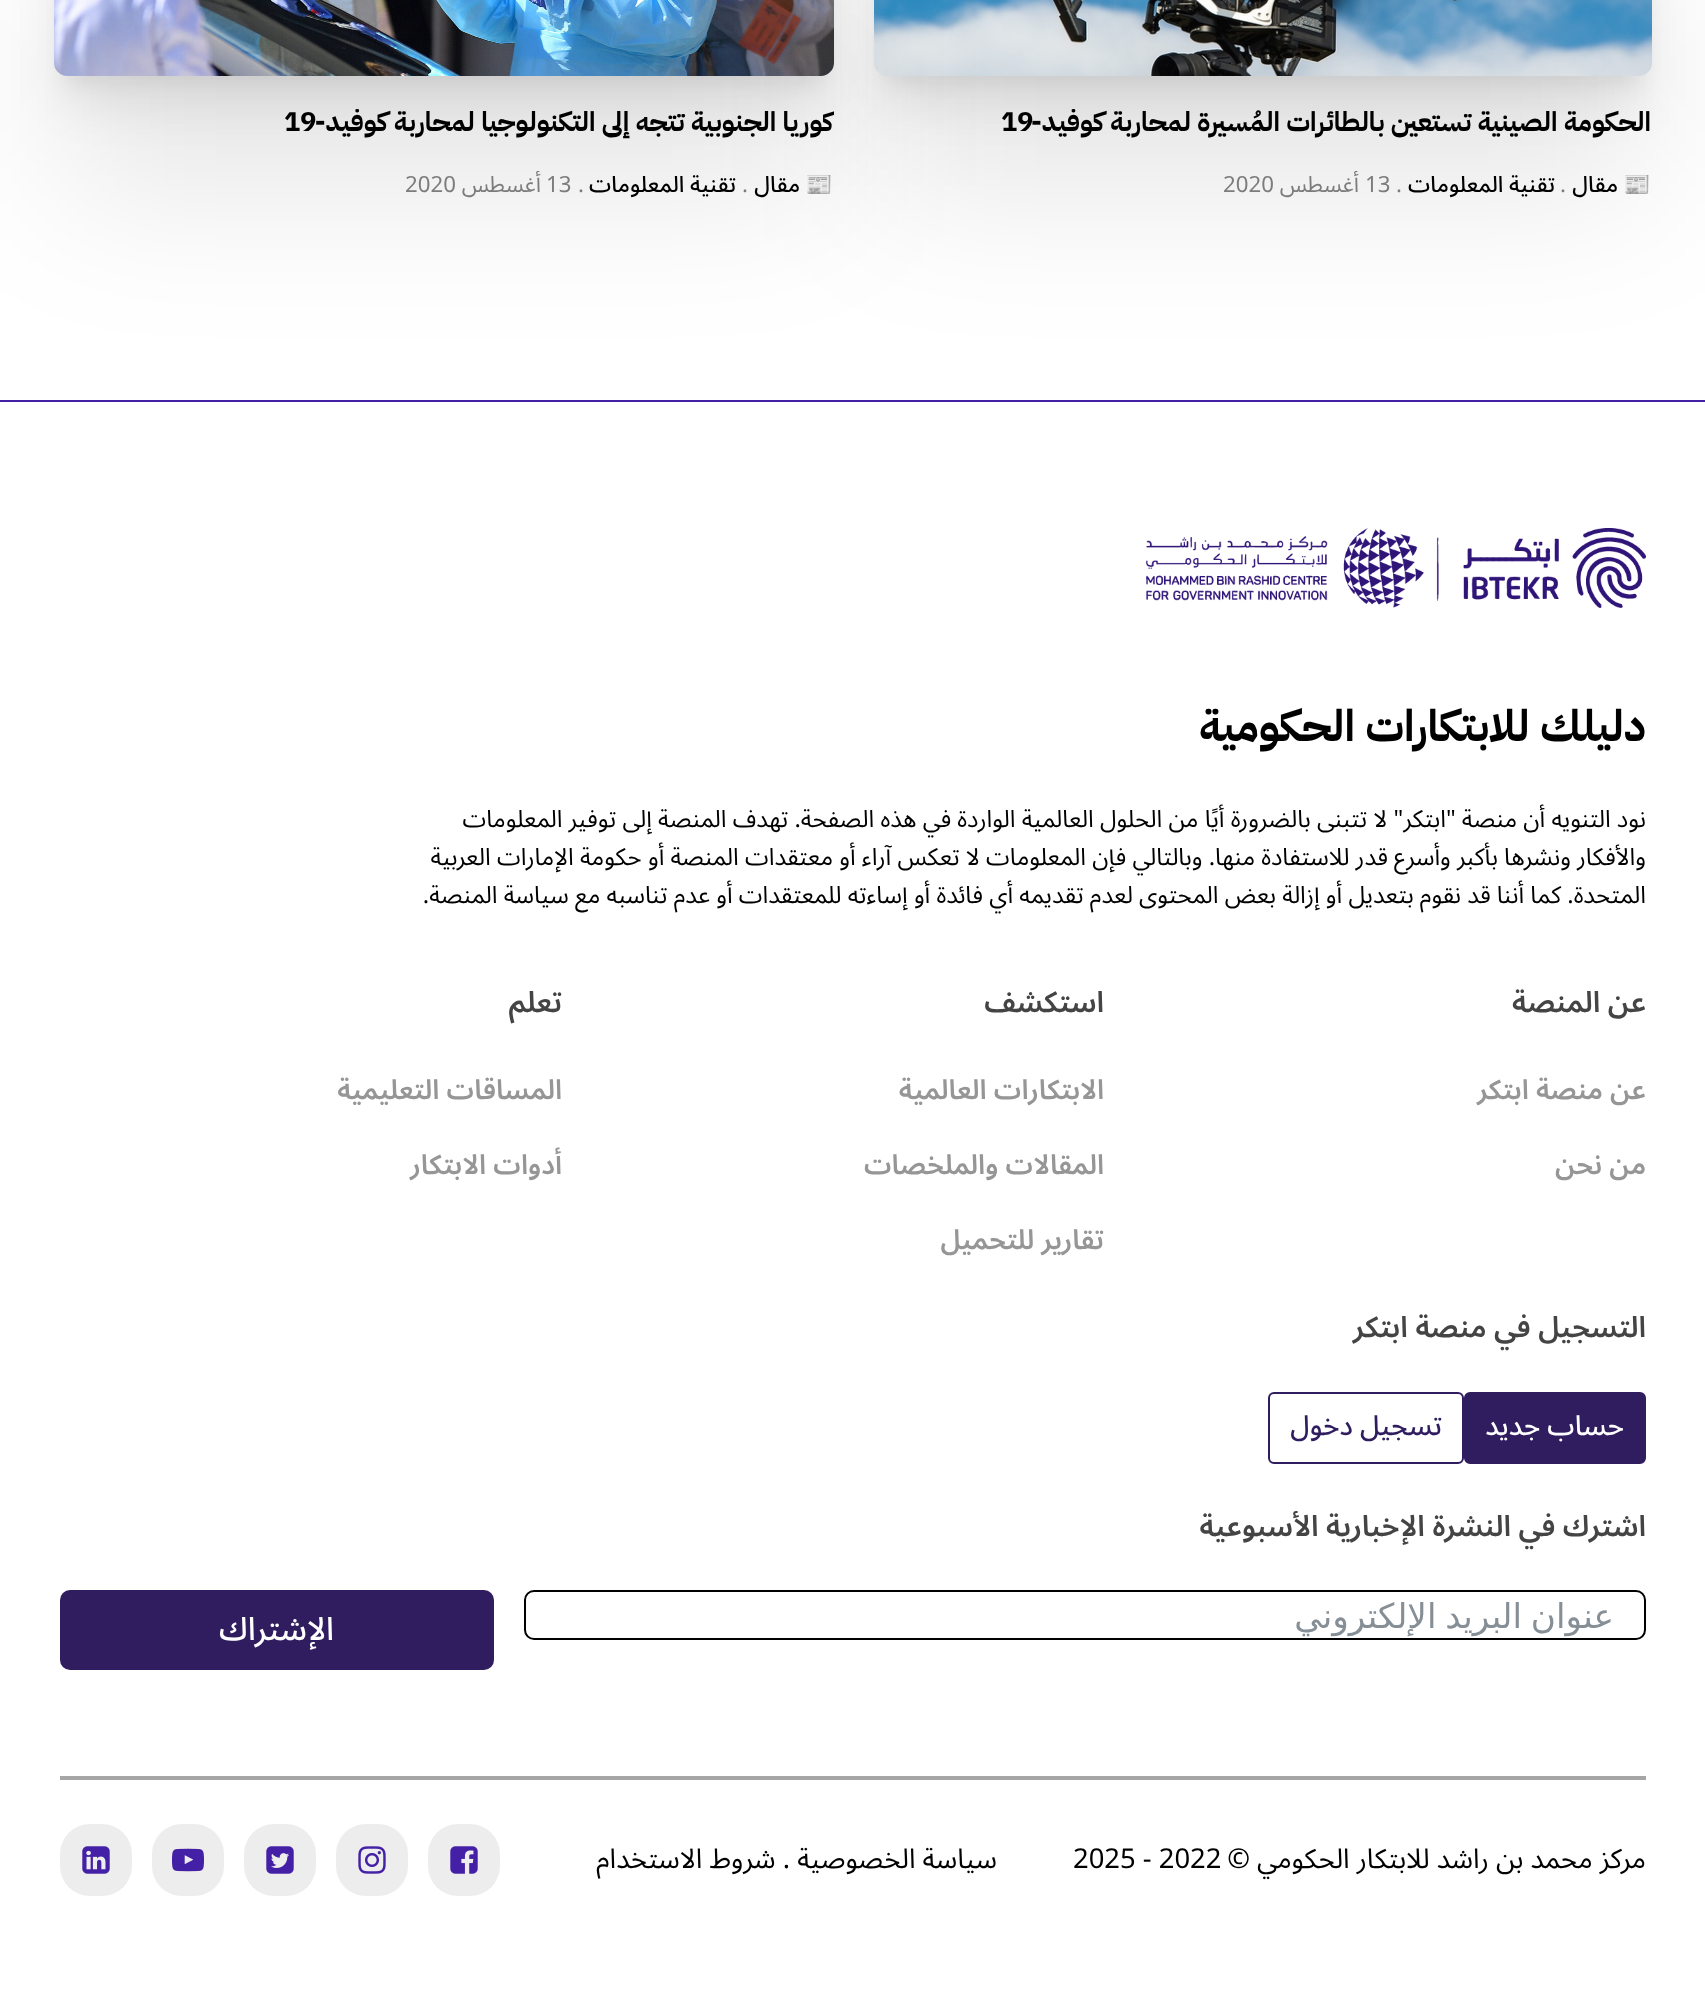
(async () => {
  const canvas = document.querySelector("canvas");
  canvas.width = 1705;
  canvas.height = 1995;
  const ctx = canvas.getContext("2d");
  ctx.miterLimit = 4;
  ctx.fontKerning = "normal";
  async function loadImage(src) {
    const img = new Image();
    img.src = src;
    await img.decode();
    return img;
  }

  ctx.fillStyle = "#ffffff";
  ctx.fillRect(0, 0, 1705, 1995);
  ctx.fillStyle = "#4420a6";
  ctx.fillRect(0, 400, 1705, 2);
  ctx.fillStyle = "rgba(0, 0, 0, 0.1)";
  ctx.filter = "blur(80px)";
  ctx.beginPath();
  ctx.roundRect(884, -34, 758, 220, 3);
  ctx.fill();
  ctx.filter = "none";
  ctx.fillStyle = "rgba(0, 0, 0, 0.08)";
  ctx.filter = "blur(24px)";
  ctx.beginPath();
  ctx.roundRect(884, -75, 758, 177, 3);
  ctx.fill();
  ctx.filter = "none";
  ctx.fillStyle = "rgba(0, 0, 0, 0.06)";
  ctx.filter = "blur(10px)";
  ctx.beginPath();
  ctx.roundRect(884, -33, 758, 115, 3);
  ctx.fill();
  ctx.filter = "none";
  ctx.drawImage(await loadImage("img/1.png"), 874, 0, 778, 76);
  ctx.fillStyle = "rgba(0, 0, 0, 0.1)";
  ctx.filter = "blur(80px)";
  ctx.beginPath();
  ctx.roundRect(64, -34, 760, 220, 3);
  ctx.fill();
  ctx.filter = "none";
  ctx.fillStyle = "rgba(0, 0, 0, 0.08)";
  ctx.filter = "blur(24px)";
  ctx.beginPath();
  ctx.roundRect(64, -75, 760, 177, 3);
  ctx.fill();
  ctx.filter = "none";
  ctx.fillStyle = "rgba(0, 0, 0, 0.06)";
  ctx.filter = "blur(10px)";
  ctx.beginPath();
  ctx.roundRect(64, -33, 760, 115, 3);
  ctx.fill();
  ctx.filter = "none";
  ctx.drawImage(await loadImage("img/2.png"), 54, 0, 780, 76);
  ctx.drawImage(await loadImage("img/3.png"), 1146, 528, 500, 80);
  ctx.fillStyle = "#2f1d5f";
  ctx.beginPath();
  ctx.roundRect(1465, 1393, 180, 70, 5);
  ctx.fill();
  ctx.strokeStyle = "#2f1d5f";
  ctx.lineWidth = 2;
  ctx.stroke();
  ctx.beginPath();
  ctx.roundRect(1269, 1393, 194, 70, 5);
  ctx.stroke();
  ctx.beginPath();
  ctx.roundRect(525, 1591, 1120, 48, 9);
  ctx.strokeStyle = "#000000";
  ctx.stroke();
  ctx.beginPath();
  ctx.roundRect(60, 1590, 434, 80, 10);
  ctx.fill();
  ctx.fillStyle = "#a6a6a6";
  ctx.fillRect(60, 1776, 1586, 4);
  ctx.fillStyle = "#ededed";
  ctx.beginPath();
  ctx.roundRect(428, 1824, 72, 72, 30);
  ctx.fill();
  ctx.drawImage(await loadImage("img/4.png"), 450, 1846, 28, 28);
  ctx.beginPath();
  ctx.roundRect(336, 1824, 72, 72, 30);
  ctx.fill();
  ctx.drawImage(await loadImage("img/5.png"), 358, 1846, 28, 28);
  ctx.beginPath();
  ctx.roundRect(244, 1824, 72, 72, 30);
  ctx.fill();
  ctx.drawImage(await loadImage("img/6.png"), 266, 1846, 28, 28);
  ctx.beginPath();
  ctx.roundRect(152, 1824, 72, 72, 30);
  ctx.fill();
  ctx.drawImage(await loadImage("img/7.png"), 172, 1848, 32, 24);
  ctx.beginPath();
  ctx.roundRect(60, 1824, 72, 72, 30);
  ctx.fill();
  ctx.drawImage(await loadImage("img/8.png"), 82, 1846, 28, 28);
  ctx.direction = "rtl";
  ctx.font = "bold 26.9px IBM Plex Sans Arabic";
  ctx.fillStyle = "#000000";
  ctx.fillText("الحكومة الصينية تستعين بالطائرات المُسيرة لمحاربة كوفيد-", 1651, 131);
  ctx.direction = "ltr";
  ctx.fillText("19", 1001, 131);
  ctx.direction = "rtl";
  ctx.font = "22.25px Noto Color Emoji";
  ctx.fillText("📰", 1651, 192);
  ctx.font = "500 22.25px Noto Sans Arabic";
  ctx.fillText("مقال", 1618, 192);
  ctx.direction = "ltr";
  ctx.font = "22.25px Noto Sans Arabic";
  ctx.fillStyle = "#7c7c7c";
  ctx.fillText(".", 1560, 192);
  ctx.direction = "rtl";
  ctx.font = "500 22.25px Noto Sans Arabic";
  ctx.fillStyle = "#000000";
  ctx.fillText("تقنية المعلومات", 1555, 192);
  ctx.direction = "ltr";
  ctx.font = "22.25px Noto Sans Arabic";
  ctx.fillStyle = "#7c7c7c";
  ctx.fillText(".", 1396, 192);
  ctx.fillText("13", 1365, 192);
  ctx.direction = "rtl";
  ctx.fillText("أغسطس", 1359, 192);
  ctx.direction = "ltr";
  ctx.fillText("2020", 1223, 192);
  ctx.save();
  ctx.beginPath();
  ctx.rect(284, 104, 550, 40);
  ctx.clip();
  ctx.direction = "rtl";
  ctx.font = "bold 26.9px IBM Plex Sans Arabic";
  ctx.fillStyle = "#000000";
  ctx.fillText("كوريا الجنوبية تتجه إلى التكنولوجيا لمحاربة كوفيد-", 833, 131);
  ctx.restore();
  ctx.font = "bold 26.9px IBM Plex Sans Arabic";
  ctx.fillStyle = "#000000";
  ctx.fillText("19", 284, 131);
  ctx.direction = "rtl";
  ctx.font = "22.25px Noto Color Emoji";
  ctx.fillText("📰", 833, 192);
  ctx.font = "500 22.25px Noto Sans Arabic";
  ctx.fillText("مقال", 800, 192);
  ctx.direction = "ltr";
  ctx.font = "22.25px Noto Sans Arabic";
  ctx.fillStyle = "#7c7c7c";
  ctx.fillText(".", 742, 192);
  ctx.direction = "rtl";
  ctx.font = "500 22.25px Noto Sans Arabic";
  ctx.fillStyle = "#000000";
  ctx.fillText("تقنية المعلومات", 736, 192);
  ctx.direction = "ltr";
  ctx.font = "22.25px Noto Sans Arabic";
  ctx.fillStyle = "#7c7c7c";
  ctx.fillText(".", 578, 192);
  ctx.fillText("13", 546, 192);
  ctx.direction = "rtl";
  ctx.fillText("أغسطس", 541, 192);
  ctx.direction = "ltr";
  ctx.fillText("2020", 405, 192);
  ctx.direction = "rtl";
  ctx.font = "bold 43.75px IBM Plex Sans Arabic";
  ctx.fillStyle = "#000000";
  ctx.fillText("دليلك للابتكارات الحكومية", 1646, 741);
  ctx.font = "23.95px Noto Sans Arabic";
  for (const [text, x, y] of [
    ["نود التنويه أن منصة \"ابتكر\" لا تتبنى بالضرورة أيًا من الحلول العالمية الواردة في هذه الصفحة. تهدف المنصة إلى توفير المعلومات", 1646, 827],
    ["والأفكار ونشرها بأكبر وأسرع قدر للاستفادة منها. وبالتالي فإن المعلومات لا تعكس آراء أو معتقدات المنصة أو حكومة الإمارات العربية", 1646, 865],
    ["المتحدة. كما أننا قد نقوم بتعديل أو إزالة بعض المحتوى لعدم تقديمه أي فائدة أو إساءته للمعتقدات أو عدم تناسبه مع سياسة المنصة.", 1646, 903],
  ]) {
    ctx.fillText(text, x, y);
  }
  ctx.font = "600 29.1px Noto Sans Arabic";
  ctx.fillStyle = "#444444";
  ctx.fillText("عن المنصة", 1646, 1012);
  ctx.font = "600 27.4px Noto Sans Arabic";
  ctx.fillStyle = "#969696";
  ctx.fillText("عن منصة ابتكر", 1646, 1099);
  ctx.fillText("من نحن", 1646, 1174);
  ctx.font = "600 29.1px Noto Sans Arabic";
  ctx.fillStyle = "#444444";
  ctx.fillText("استكشف", 1104, 1012);
  ctx.font = "600 27.4px Noto Sans Arabic";
  ctx.fillStyle = "#969696";
  for (const [text, x, y] of [
    ["الابتكارات العالمية", 1104, 1099],
    ["المقالات والملخصات", 1104, 1174],
    ["تقارير للتحميل", 1104, 1249],
  ]) {
    ctx.fillText(text, x, y);
  }
  ctx.font = "600 29.1px Noto Sans Arabic";
  ctx.fillStyle = "#444444";
  ctx.fillText("تعلم", 562, 1012);
  ctx.font = "600 27.4px Noto Sans Arabic";
  ctx.fillStyle = "#969696";
  ctx.fillText("المساقات التعليمية", 562, 1099);
  ctx.fillText("أدوات الابتكار", 562, 1174);
  ctx.font = "600 29.1px Noto Sans Arabic";
  ctx.fillStyle = "#444444";
  ctx.fillText("التسجيل في منصة ابتكر", 1646, 1337);
  ctx.font = "500 27.4px Noto Sans Arabic";
  ctx.fillStyle = "#ffffff";
  ctx.fillText("حساب جديد", 1624, 1435);
  ctx.fillStyle = "#2f1d5f";
  ctx.fillText("تسجيل دخول", 1442, 1435);
  ctx.font = "600 29.1px Noto Sans Arabic";
  ctx.fillStyle = "#444444";
  ctx.fillText("اشترك في النشرة الإخبارية الأسبوعية", 1646, 1536);
  ctx.save();
  ctx.beginPath();
  ctx.rect(556, 1592, 1058, 46);
  ctx.clip();
  ctx.wordSpacing = "-2px";
  ctx.font = "34.25px DejaVu Sans";
  ctx.fillStyle = "#868e96";
  ctx.fillText("عنوان البريد الإلكتروني", 1614, 1628);
  ctx.restore();
  ctx.font = "500 32px Noto Sans Arabic";
  ctx.fillStyle = "#ffffff";
  ctx.fillText("الإشتراك", 334, 1640);
  ctx.font = "27.4px Noto Sans Arabic";
  ctx.fillStyle = "#000000";
  ctx.fillText("مركز محمد بن راشد للابتكار الحكومي ©", 1646, 1868);
  ctx.direction = "ltr";
  ctx.fillText("2025 - 2022", 1073, 1868);
  ctx.direction = "rtl";
  ctx.fillText("سياسة الخصوصية . شروط الاستخدام", 997, 1868);
})();
